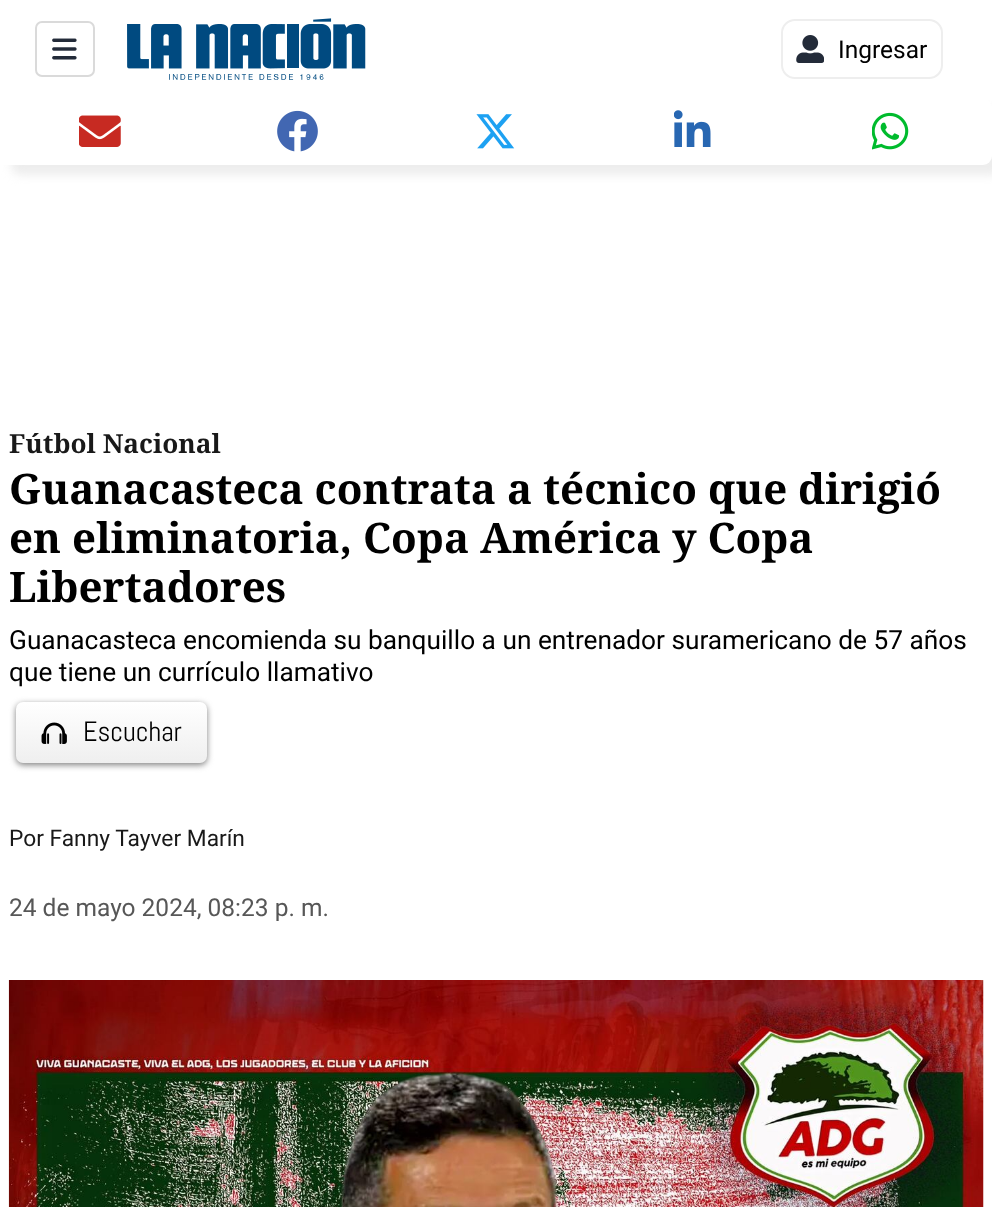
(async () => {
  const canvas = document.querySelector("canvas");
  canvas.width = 992;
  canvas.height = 1207;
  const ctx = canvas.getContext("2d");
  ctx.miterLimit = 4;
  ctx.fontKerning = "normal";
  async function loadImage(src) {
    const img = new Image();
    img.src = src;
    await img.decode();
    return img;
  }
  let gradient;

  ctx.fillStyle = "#ffffff";
  ctx.fillRect(0, 0, 992, 1207);
  ctx.beginPath();
  ctx.roundRect(36, 22, 58, 54, 6);
  ctx.strokeStyle = "#dadada";
  ctx.lineWidth = 2;
  ctx.stroke();
  ctx.drawImage(await loadImage("img/1.png"), 52, 38, 25, 22);
  ctx.drawImage(await loadImage("img/2.png"), 127, 18, 239, 62);
  ctx.beginPath();
  ctx.roundRect(782, 20, 160, 58, 13);
  ctx.strokeStyle = "#eeeeee";
  ctx.stroke();
  ctx.drawImage(await loadImage("img/3.png"), 796, 35, 28, 28);
  ctx.fillStyle = "#ededed";
  ctx.filter = "blur(5px)";
  ctx.beginPath();
  ctx.roundRect(11, 109, 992, 66, 9);
  ctx.fill();
  ctx.filter = "none";
  ctx.fillStyle = "#ffffff";
  ctx.beginPath();
  ctx.roundRect(0, 98, 992, 67, [0, 9, 9, 0]);
  ctx.fill();
  ctx.drawImage(await loadImage("img/4.png"), 79, 115, 42, 32);
  ctx.drawImage(await loadImage("img/5.png"), 277, 110, 41, 42);
  ctx.drawImage(await loadImage("img/6.png"), 476, 114, 39, 35);
  ctx.drawImage(await loadImage("img/7.png"), 674, 110, 37, 37);
  ctx.drawImage(await loadImage("img/8.png"), 872, 112, 37, 38);
  ctx.fillStyle = "#808080";
  ctx.filter = "blur(3px)";
  ctx.beginPath();
  ctx.roundRect(16, 704, 191, 61, 7);
  ctx.fill();
  ctx.filter = "none";
  gradient = ctx.createLinearGradient(111, 702, 111, 763);
  gradient.addColorStop(0, "#ffffff");
  gradient.addColorStop(1, "#efefef");
  ctx.fillStyle = gradient;
  ctx.beginPath();
  ctx.roundRect(16, 702, 191, 61, 7);
  ctx.fill();
  ctx.drawImage(await loadImage("img/9.png"), 41, 722, 26, 22);
  ctx.drawImage(await loadImage("img/10.png"), 8, 980, 976, 227);
  ctx.font = "24.5px Roboto";
  ctx.fillStyle = "#000000";
  ctx.fillText("Ingresar", 838, 58);
  ctx.font = "bold 26.25px Noto Serif";
  ctx.fillStyle = "#191919";
  ctx.fillText("Fútbol Nacional", 9, 453);
  ctx.font = "bold 42px Noto Serif";
  ctx.fillStyle = "#000000";
  for (const [text, x, y] of [
    ["Guanacasteca contrata a técnico que dirigió", 9, 504],
    ["en eliminatoria, Copa América y Copa", 9, 553],
    ["Libertadores", 9, 602],
  ]) {
    ctx.fillText(text, x, y);
  }
  ctx.font = "26.25px Roboto";
  ctx.fillText("Guanacasteca encomienda su banquillo a un entrenador suramericano de 57 años", 9, 649);
  ctx.fillText("que tiene un currículo llamativo", 9, 681);
  ctx.font = "28px Abel";
  ctx.fillText("Escuchar", 83, 741);
  ctx.font = "22.75px Roboto";
  ctx.fillStyle = "#191919";
  ctx.fillText("Por Fanny Tayver Marín", 9, 846);
  ctx.font = "24.5px Roboto";
  ctx.fillStyle = "#575757";
  ctx.fillText("24 de mayo 2024, 08:23 p. m.", 9, 916);
})();
